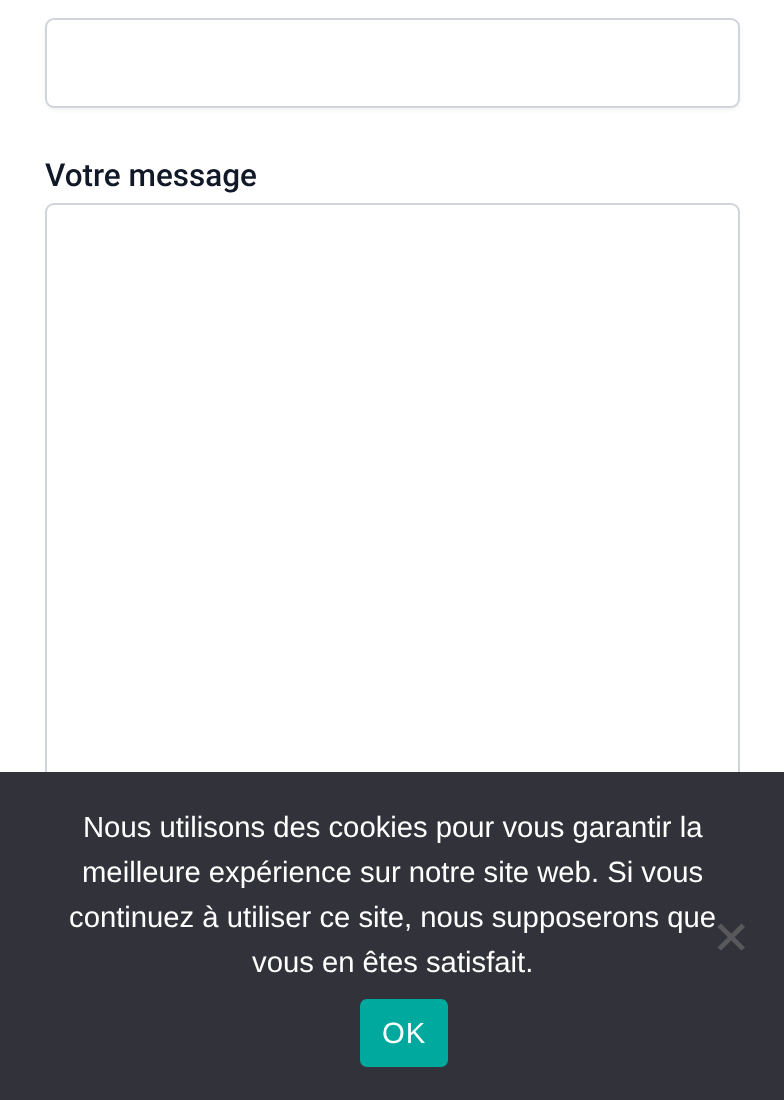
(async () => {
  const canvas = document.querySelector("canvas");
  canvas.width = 784;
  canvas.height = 1100;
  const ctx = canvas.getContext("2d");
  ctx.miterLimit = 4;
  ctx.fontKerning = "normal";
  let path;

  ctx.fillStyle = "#ffffff";
  ctx.fillRect(0, 0, 784, 1100);
  ctx.fillStyle = "rgba(0, 0, 0, 0.05)";
  ctx.filter = "blur(2px)";
  ctx.beginPath();
  ctx.roundRect(45, 20, 695, 90, 9);
  ctx.fill();
  ctx.filter = "none";
  ctx.fillStyle = "#ffffff";
  ctx.beginPath();
  ctx.roundRect(46, 19, 693, 88, 8);
  ctx.fill();
  ctx.strokeStyle = "#d1d5db";
  ctx.lineWidth = 2;
  ctx.stroke();
  ctx.beginPath();
  ctx.roundRect(46, 204, 693, 596, 8);
  ctx.stroke();
  ctx.fillStyle = "#32323a";
  ctx.fillRect(0, 772, 784, 328);
  ctx.fillStyle = "#59595d";
  path = new Path2D("M741.5 923.5L745 927L721 950.5L717.5 947.5Z");
  ctx.fill(path);
  path = new Path2D("M717.5 927L721 923.5L745 947.5L741.5 950.5Z");
  ctx.fill(path);
  ctx.fillStyle = "#00a99d";
  ctx.beginPath();
  ctx.roundRect(360, 999, 88, 68, 7);
  ctx.fill();
  ctx.font = "500 31.5px Roboto";
  ctx.fillStyle = "#111827";
  ctx.fillText("Votre message", 45, 186);
  ctx.font = "29.25px Liberation Sans";
  ctx.fillStyle = "#ffffff";
  for (const [text, x, y] of [
    ["Nous utilisons des cookies pour vous garantir la", 83, 837],
    ["meilleure expérience sur notre site web. Si vous", 82, 882],
    ["continuez à utiliser ce site, nous supposerons que", 69, 927],
    ["vous en êtes satisfait.", 252, 972],
  ]) {
    ctx.fillText(text, x, y);
  }
  ctx.letterSpacing = "1px";
  ctx.fillText("OK", 382, 1043);
})();
